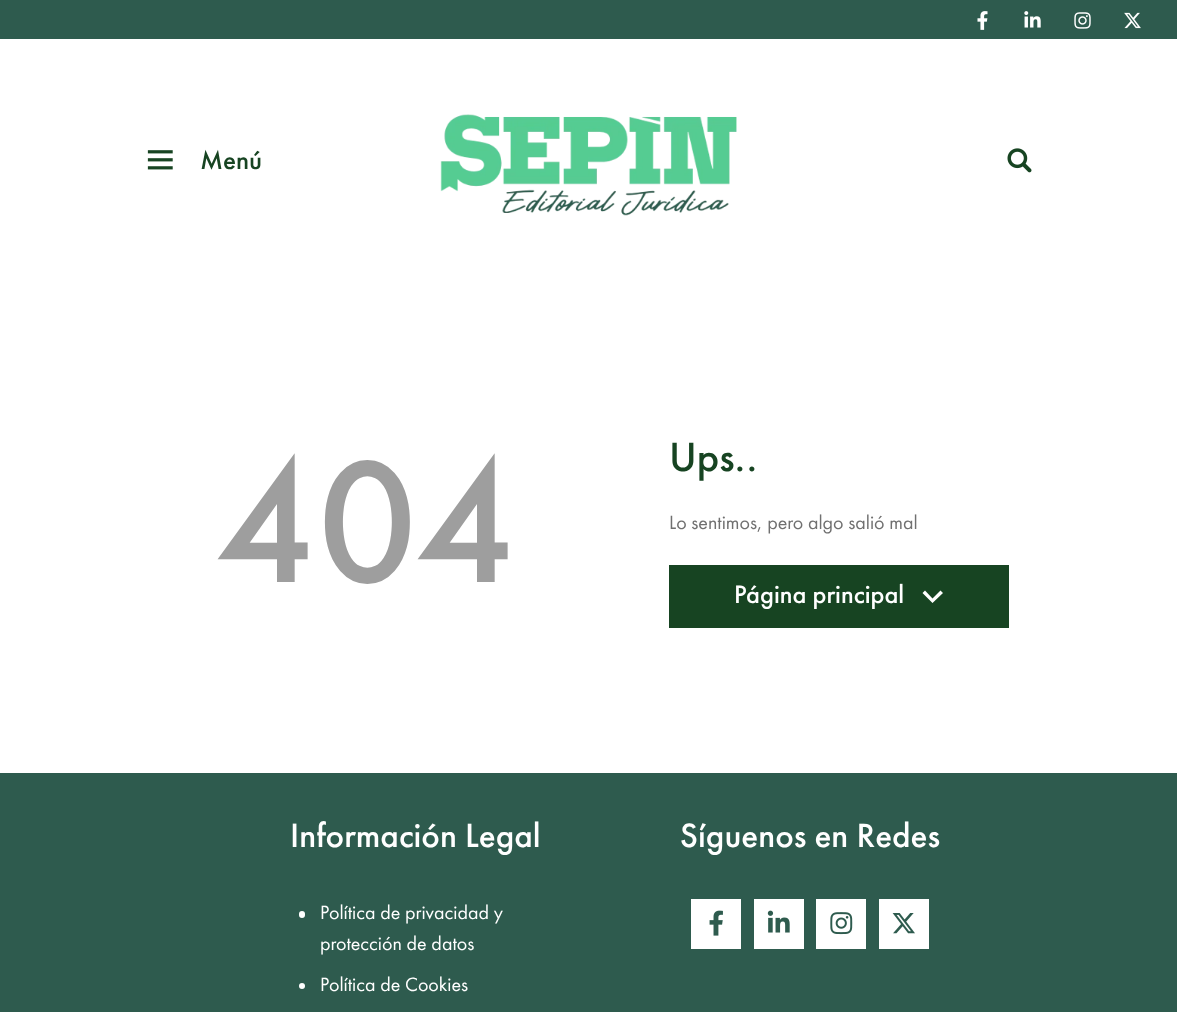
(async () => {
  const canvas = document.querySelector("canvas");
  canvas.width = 1177;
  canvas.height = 1012;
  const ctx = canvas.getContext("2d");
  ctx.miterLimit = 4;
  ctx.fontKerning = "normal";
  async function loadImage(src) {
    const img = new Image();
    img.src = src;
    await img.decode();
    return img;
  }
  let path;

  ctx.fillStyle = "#ffffff";
  ctx.fillRect(0, 0, 1177, 1012);
  ctx.fillStyle = "#2e5b4e";
  ctx.fillRect(0, 0, 1177, 39);
  ctx.drawImage(await loadImage("img/1.png"), 977, 11, 11, 19);
  ctx.drawImage(await loadImage("img/2.png"), 1024, 11, 17, 17);
  ctx.drawImage(await loadImage("img/3.png"), 1074, 12, 17, 17);
  ctx.drawImage(await loadImage("img/4.png"), 1124, 12, 17, 17);
  ctx.drawImage(await loadImage("img/5.png"), 147, 150, 26, 20);
  ctx.drawImage(await loadImage("img/6.png"), 440, 114, 297, 102);
  ctx.drawImage(await loadImage("img/7.png"), 1007, 148, 25, 25);
  ctx.fillStyle = "#174422";
  ctx.fillRect(669, 565, 340, 63);
  ctx.fillStyle = "#ffffff";
  path = new Path2D("M925 590.5L922.5 593L932.5 603L943 593L940.5 590.5L932.5 598.5Z");
  ctx.fill(path);
  ctx.fillStyle = "#2e5b4e";
  ctx.fillRect(0, 773, 1177, 239);
  ctx.fillStyle = "#ffffff";
  ctx.beginPath();
  ctx.roundRect(299, 911, 6, 7, 3);
  ctx.fill();
  ctx.beginPath();
  ctx.arc(302, 986, 3, 0, Math.PI * 2);
  ctx.fill();
  ctx.fillRect(691, 899, 50, 50);
  ctx.drawImage(await loadImage("img/8.png"), 709, 910, 14, 26);
  ctx.fillRect(754, 899, 50, 50);
  ctx.drawImage(await loadImage("img/9.png"), 767, 910, 23, 23);
  ctx.fillRect(816, 899, 50, 50);
  ctx.drawImage(await loadImage("img/10.png"), 830, 912, 23, 23);
  ctx.fillRect(879, 899, 50, 50);
  ctx.drawImage(await loadImage("img/11.png"), 892, 913, 23, 21);
  ctx.font = "500 27px Futura PT";
  ctx.fillStyle = "#174422";
  ctx.fillText("Menú", 200, 169);
  ctx.font = "500 180px Futura PT";
  ctx.fillStyle = "#9e9e9e";
  ctx.fillText("404", 214, 582);
  ctx.font = "500 42.5px Futura PT";
  ctx.fillStyle = "#174422";
  ctx.fillText("Ups..", 669, 471);
  ctx.font = "20px Futura PT";
  ctx.fillStyle = "#707070";
  ctx.fillText("Lo sentimos, pero algo salió mal", 669, 529);
  ctx.font = "500 26.25px Futura PT";
  ctx.fillStyle = "#ffffff";
  ctx.fillText("Página principal", 734, 603);
  ctx.font = "500 35px Futura PT";
  ctx.fillText("Información Legal", 290, 847);
  ctx.font = "20px Futura PT";
  for (const [text, x, y] of [
    ["Política de privacidad y", 320, 919],
    ["protección de datos", 320, 950],
    ["Política de Cookies", 320, 991],
  ]) {
    ctx.fillText(text, x, y);
  }
  ctx.font = "500 35px Futura PT";
  ctx.fillText("Síguenos en Redes", 680, 847);
})();
